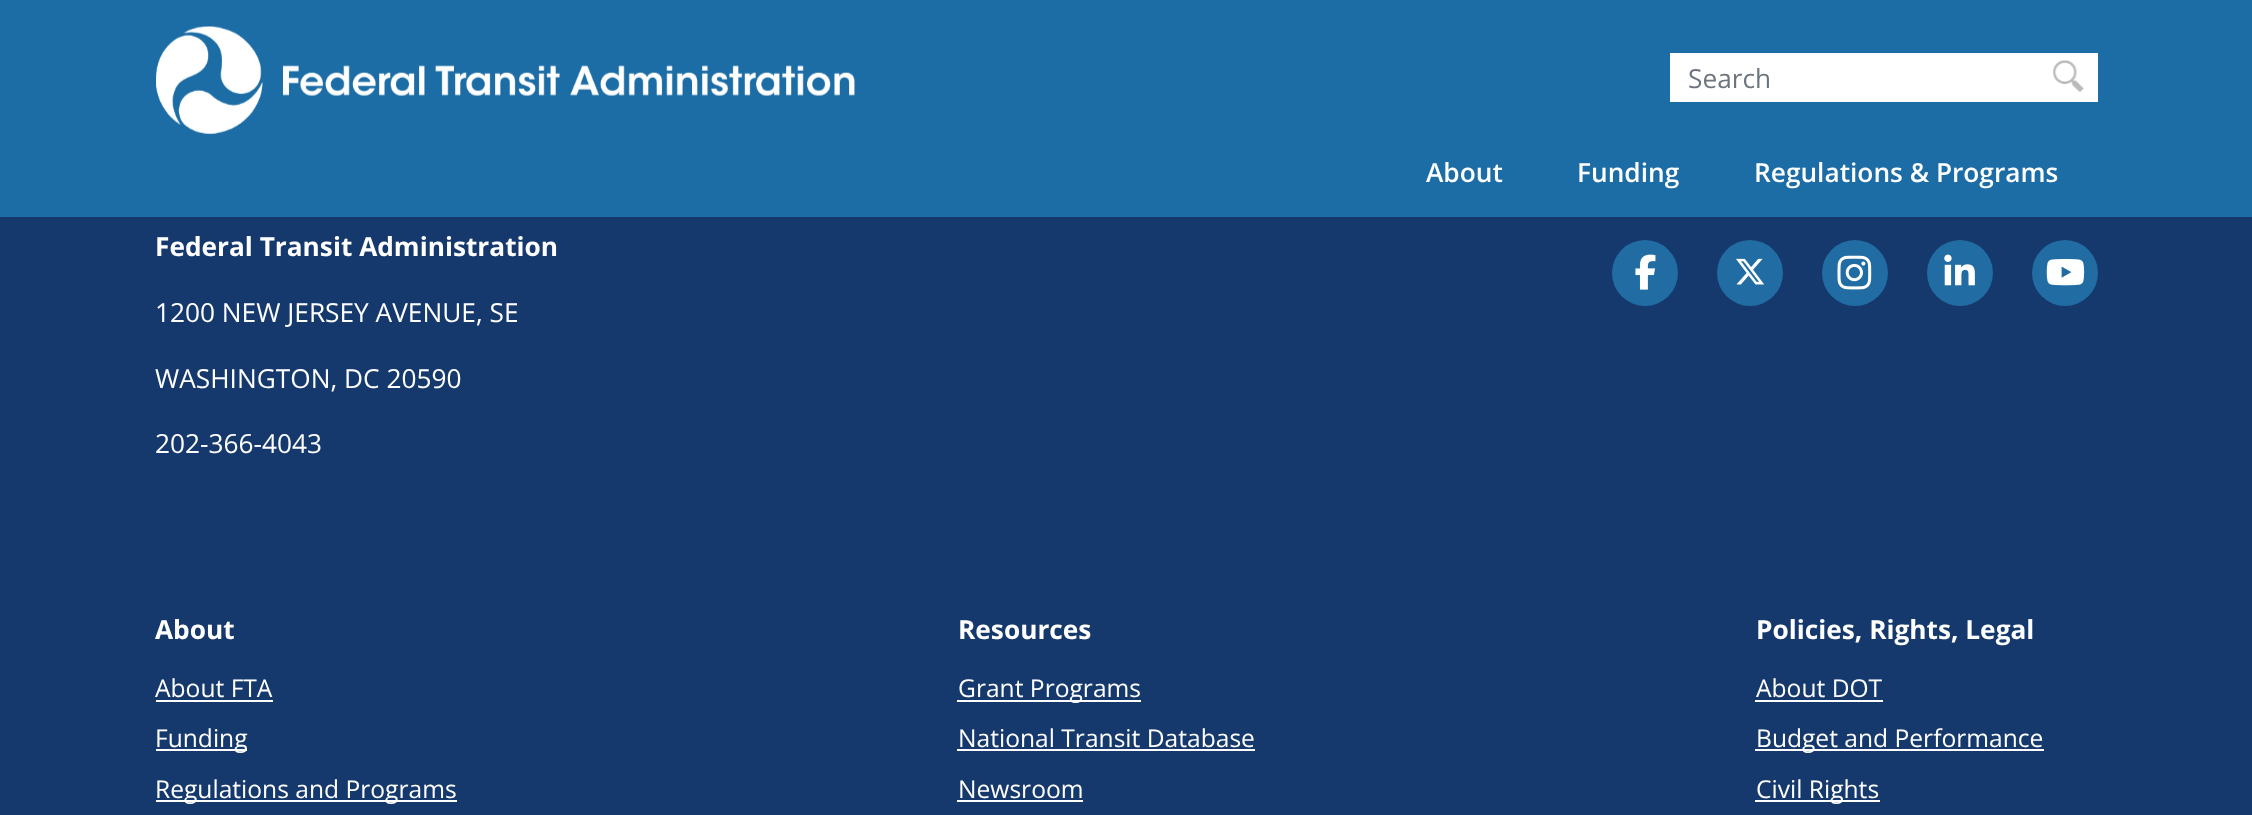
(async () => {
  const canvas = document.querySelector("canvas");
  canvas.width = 2252;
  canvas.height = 815;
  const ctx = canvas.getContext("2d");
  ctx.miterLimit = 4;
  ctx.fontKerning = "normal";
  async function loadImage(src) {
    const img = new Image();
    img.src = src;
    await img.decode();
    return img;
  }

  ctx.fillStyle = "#15396c";
  ctx.fillRect(0, 0, 2252, 815);
  ctx.fillStyle = "#1c6da6";
  ctx.fillRect(0, 0, 2252, 217);
  ctx.drawImage(await loadImage("img/1.png"), 156, 26, 699, 109);
  ctx.fillStyle = "#ffffff";
  ctx.fillRect(1670, 53, 428, 49);
  ctx.drawImage(await loadImage("img/2.png"), 2053, 60, 31, 32);
  ctx.fillStyle = "#216da3";
  ctx.beginPath();
  ctx.arc(1645, 273, 33, 0, Math.PI * 2);
  ctx.fill();
  ctx.drawImage(await loadImage("img/3.png"), 1635, 254, 21, 36);
  ctx.beginPath();
  ctx.arc(1750, 273, 33, 0, Math.PI * 2);
  ctx.fill();
  ctx.drawImage(await loadImage("img/4.png"), 1736, 258, 29, 27);
  ctx.beginPath();
  ctx.arc(1855, 273, 33, 0, Math.PI * 2);
  ctx.fill();
  ctx.drawImage(await loadImage("img/5.png"), 1837, 255, 35, 35);
  ctx.beginPath();
  ctx.arc(1960, 273, 33, 0, Math.PI * 2);
  ctx.fill();
  ctx.drawImage(await loadImage("img/6.png"), 1944, 254, 31, 32);
  ctx.beginPath();
  ctx.arc(2065, 273, 33, 0, Math.PI * 2);
  ctx.fill();
  ctx.drawImage(await loadImage("img/7.png"), 2046, 259, 39, 27);
  for (const [x, y, w, h, color] of [
    [156, 700, 117, 2, "#ffffff"],
    [156, 749, 91, 2, "#ffffff"],
    [156, 800, 301, 2, "#ffffff"],
    [957, 700, 184, 2, "#ffffff"],
    [957, 749, 298, 2, "#ffffff"],
    [957, 800, 126, 2, "#ffffff"],
    [1755, 700, 128, 2, "#ffffff"],
    [1755, 749, 289, 2, "#ffffff"],
    [1755, 800, 125, 2, "#ffffff"],
  ]) {
    ctx.fillStyle = color;
    ctx.fillRect(x, y, w, h);
  }
  ctx.font = "26.25px Open Sans";
  ctx.fillStyle = "#6c757d";
  ctx.fillText("Search", 1688, 88);
  ctx.font = "600 26.25px Open Sans";
  ctx.fillStyle = "#ffffff";
  for (const [text, x, y] of [
    ["About", 1426, 182],
    ["Funding", 1577, 182],
    ["Regulations & Programs", 1754, 182],
  ]) {
    ctx.fillText(text, x, y);
  }
  ctx.font = "bold 26.25px Open Sans";
  ctx.fillText("Federal Transit Administration", 155, 256);
  ctx.font = "26.25px Open Sans";
  for (const [text, x, y] of [
    ["1200 NEW JERSEY AVENUE, SE", 155, 322],
    ["WASHINGTON, DC 20590", 155, 388],
    ["202-366-4043", 155, 453],
  ]) {
    ctx.fillText(text, x, y);
  }
  ctx.font = "bold 26.25px Open Sans";
  ctx.fillText("About", 155, 639);
  ctx.font = "24.6px Open Sans";
  for (const [text, x, y] of [
    ["About FTA", 155, 697],
    ["Funding", 155, 747],
    ["Regulations and Programs", 155, 798],
  ]) {
    ctx.fillText(text, x, y);
  }
  ctx.font = "bold 26.25px Open Sans";
  ctx.fillText("Resources", 958, 639);
  ctx.font = "24.6px Open Sans";
  for (const [text, x, y] of [
    ["Grant Programs", 958, 697],
    ["National Transit Database", 958, 747],
    ["Newsroom", 958, 798],
  ]) {
    ctx.fillText(text, x, y);
  }
  ctx.font = "bold 26.25px Open Sans";
  ctx.fillText("Policies, Rights, Legal", 1756, 639);
  ctx.font = "24.6px Open Sans";
  for (const [text, x, y] of [
    ["About DOT", 1756, 697],
    ["Budget and Performance", 1756, 747],
    ["Civil Rights", 1756, 798],
  ]) {
    ctx.fillText(text, x, y);
  }
})();
